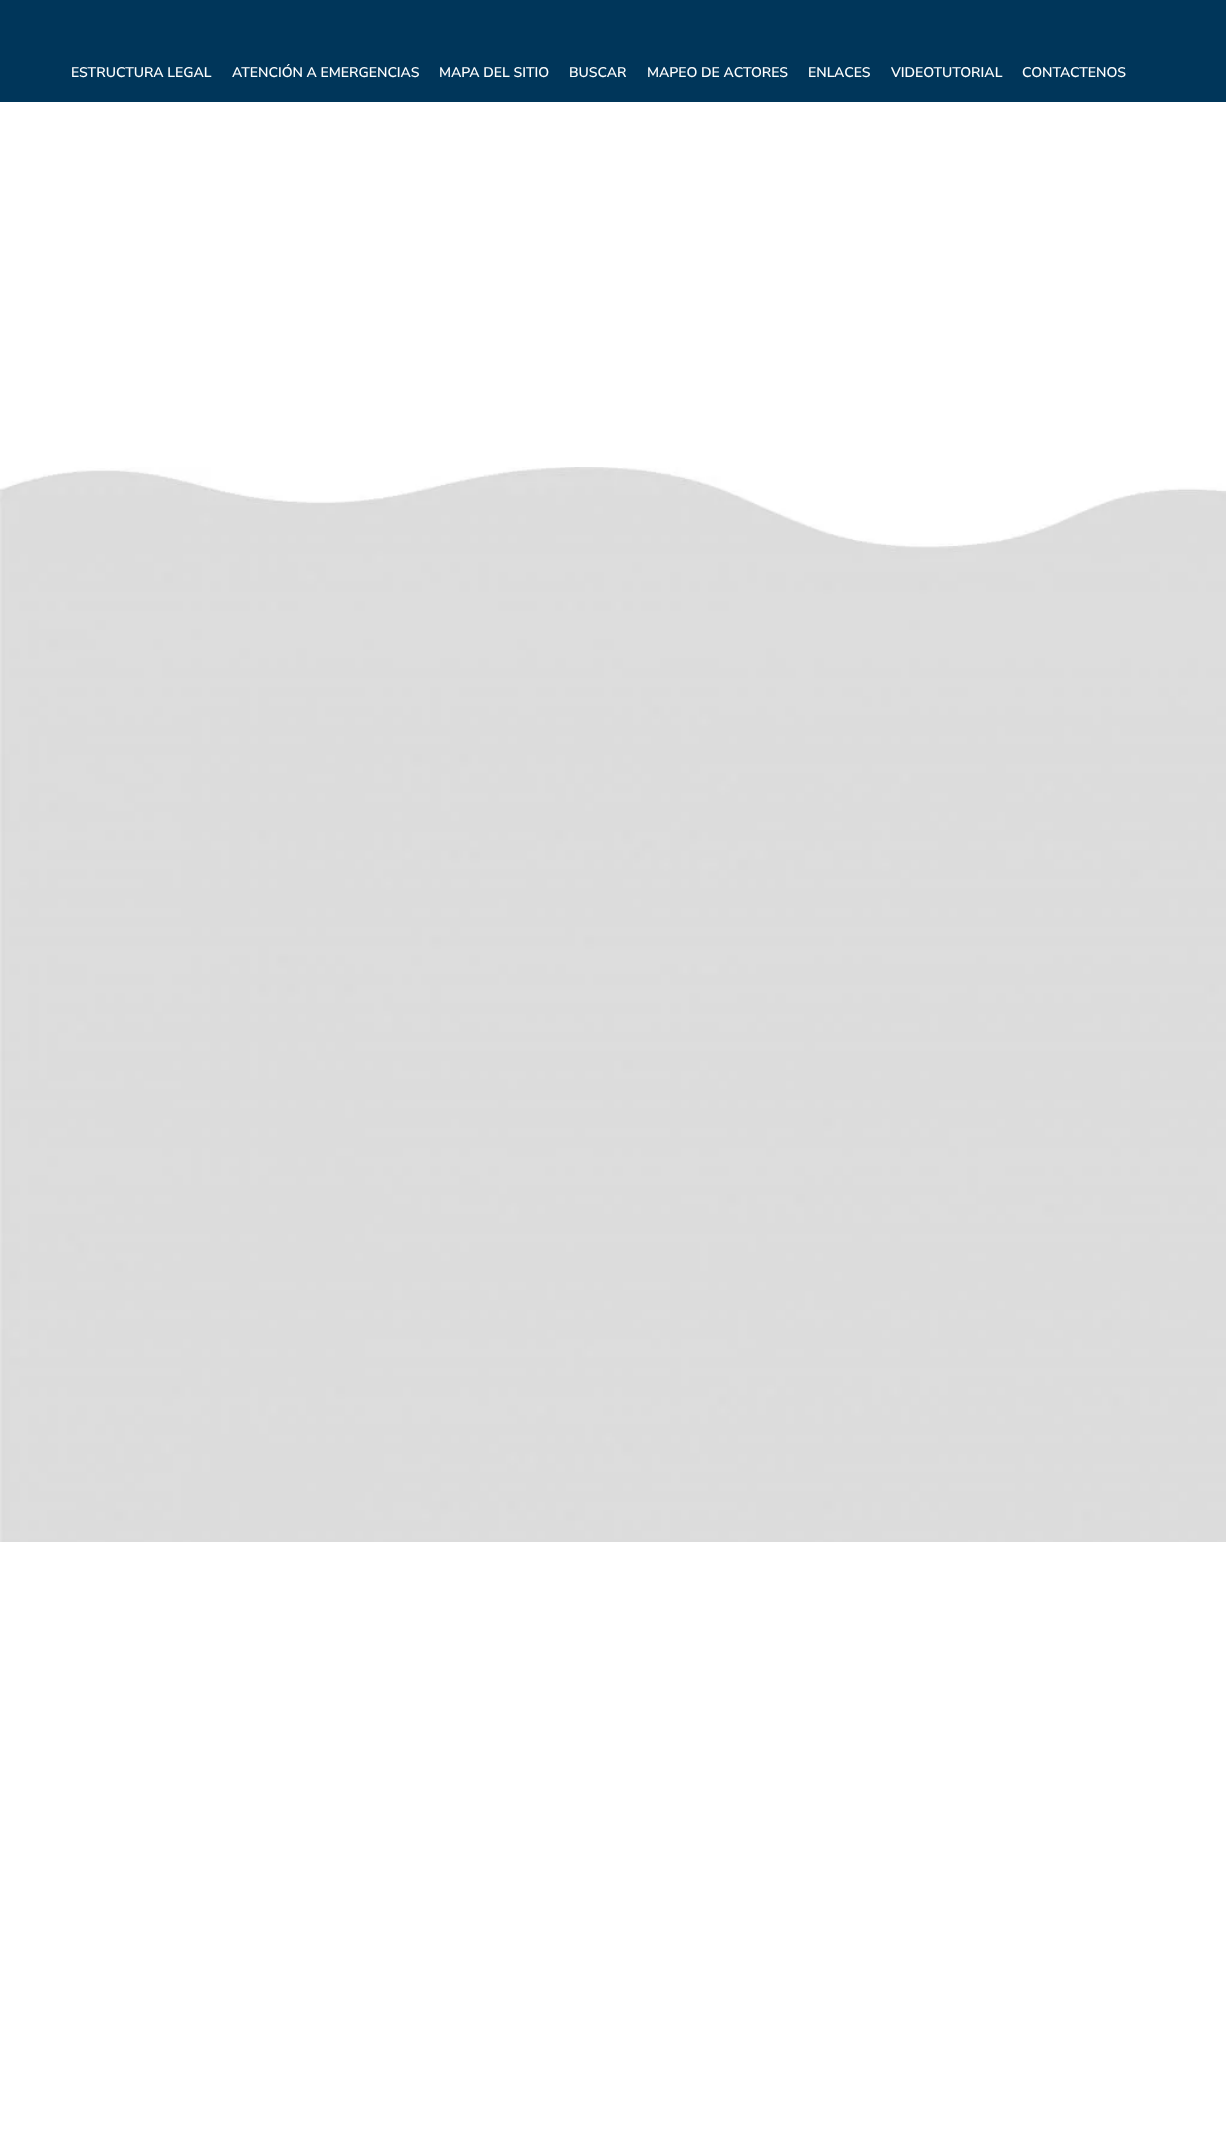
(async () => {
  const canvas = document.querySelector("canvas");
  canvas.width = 1226;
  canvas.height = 2133;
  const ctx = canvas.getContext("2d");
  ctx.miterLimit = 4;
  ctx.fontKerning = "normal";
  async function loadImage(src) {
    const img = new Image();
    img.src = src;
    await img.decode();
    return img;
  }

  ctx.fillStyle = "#ffffff";
  ctx.fillRect(0, 0, 1226, 2133);
  ctx.fillStyle = "#00365a";
  ctx.fillRect(0, 0, 1226, 102);
  ctx.drawImage(await loadImage("img/1.png"), 0, 467, 1226, 1075);
  ctx.font = "600 14px Nunito Sans";
  ctx.fillStyle = "#ffffff";
  for (const [text, x, y] of [
    ["ESTRUCTURA LEGAL", 71, 77],
    ["ATENCIÓN A EMERGENCIAS", 232, 77],
    ["MAPA DEL SITIO", 439, 77],
    ["BUSCAR", 569, 77],
    ["MAPEO DE ACTORES", 647, 77],
    ["ENLACES", 808, 77],
    ["VIDEOTUTORIAL", 891, 77],
    ["CONTACTENOS", 1022, 77],
  ]) {
    ctx.fillText(text, x, y);
  }
})();
